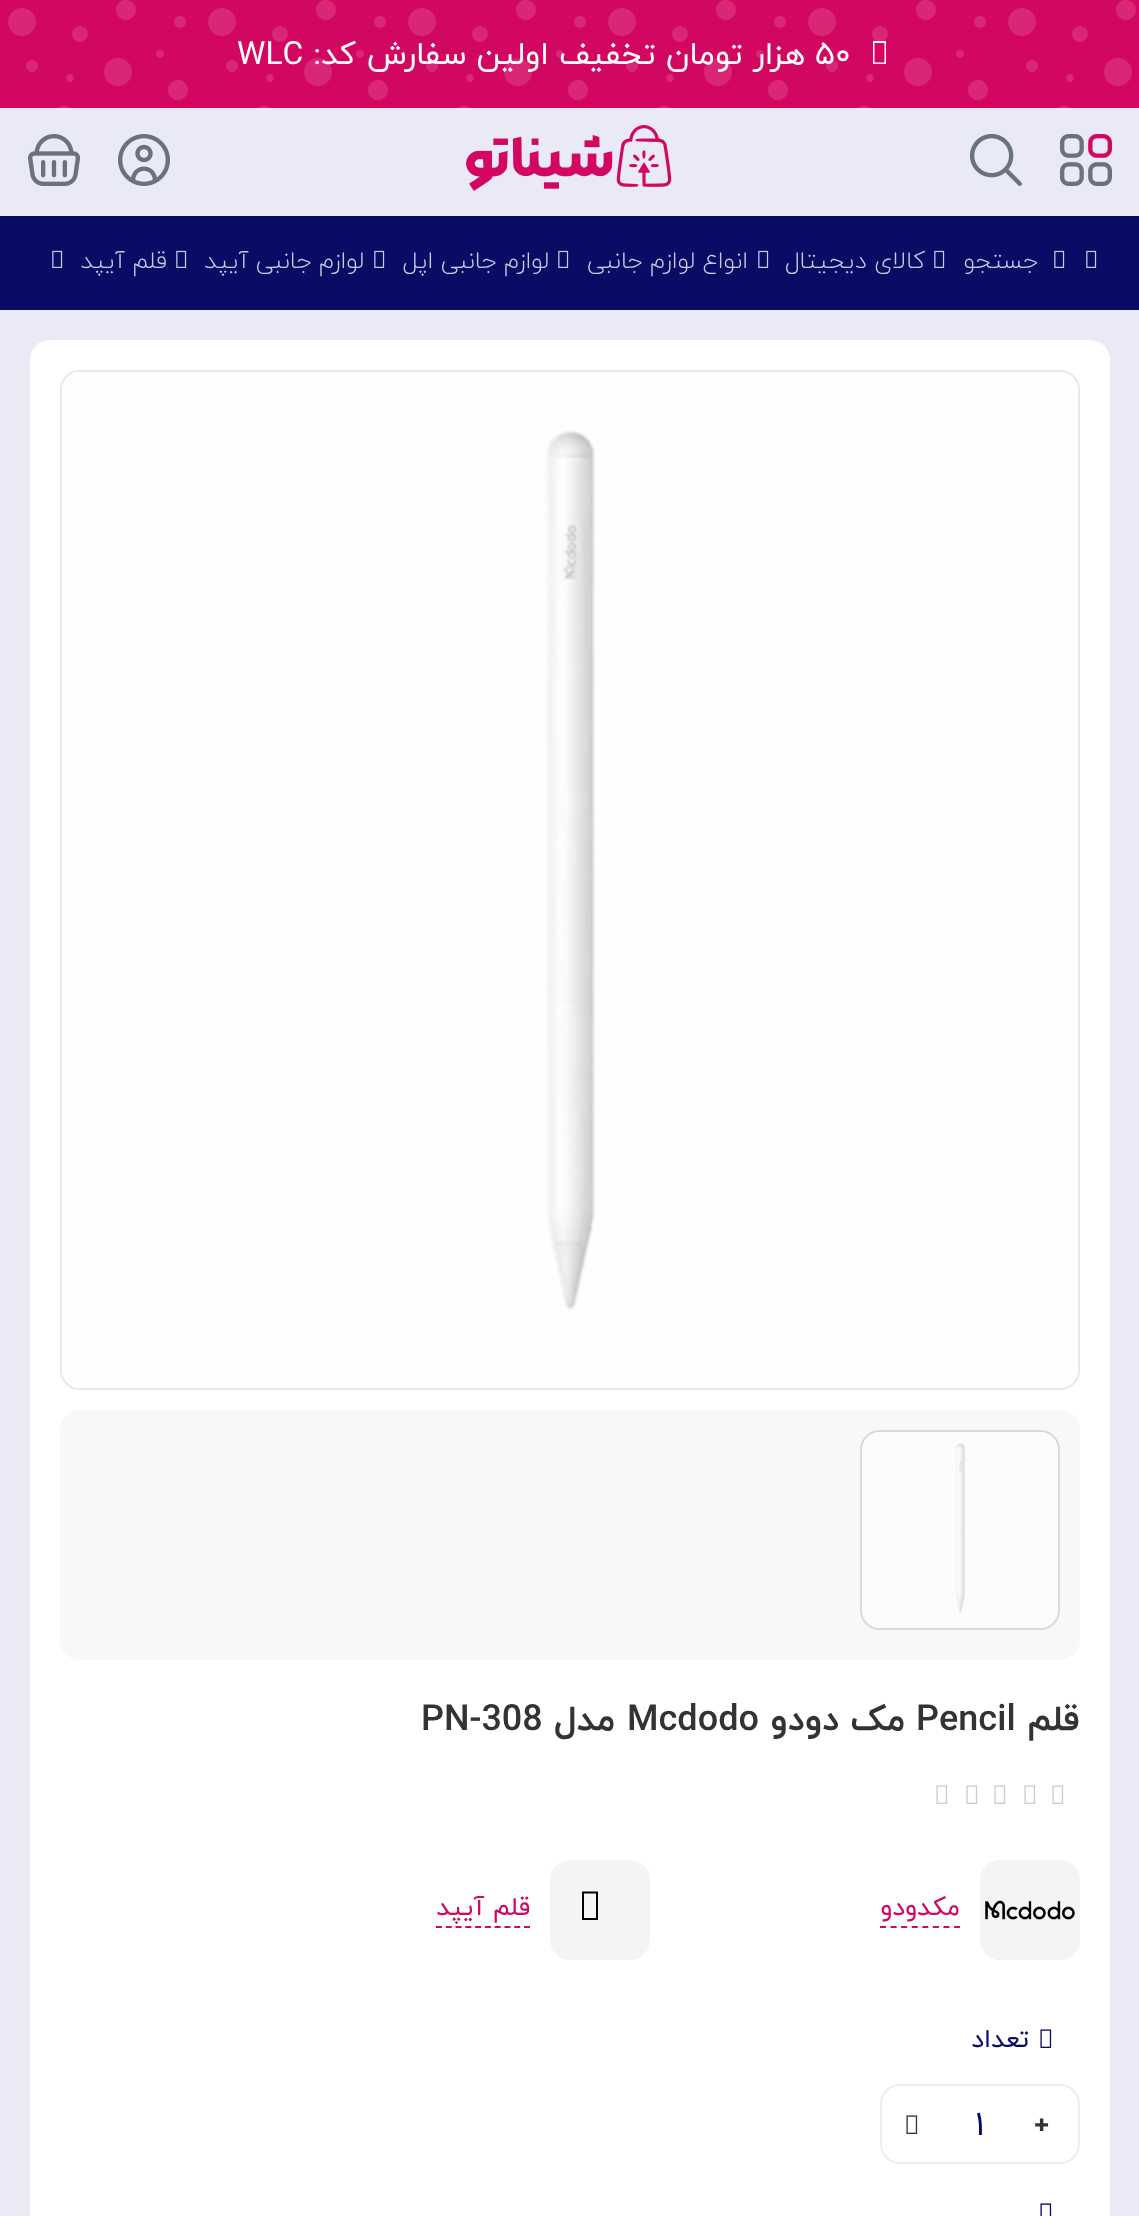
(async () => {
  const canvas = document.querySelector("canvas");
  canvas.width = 1139;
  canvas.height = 2216;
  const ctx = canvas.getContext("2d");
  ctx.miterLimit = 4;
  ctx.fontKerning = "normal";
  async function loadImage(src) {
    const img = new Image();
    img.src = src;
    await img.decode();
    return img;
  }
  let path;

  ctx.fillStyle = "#e9eaf5";
  ctx.fillRect(0, 0, 1139, 2216);
  ctx.fillStyle = "#d10762";
  ctx.fillRect(0, 0, 1139, 108);
  ctx.drawImage(await loadImage("img/1.png"), 8, 0, 1128, 108);
  ctx.fillStyle = "#ffffff";
  path = new Path2D("M873 64V41H886V64ZM874.5 62.5H884.5V43H874.5Z");
  ctx.fill(path);
  ctx.fillStyle = "#080b60";
  ctx.fillRect(0, 218, 1139, 2);
  ctx.fillStyle = "#070953";
  ctx.fillRect(0, 216, 1139, 2);
  ctx.drawImage(await loadImage("img/2.png"), 1060, 134, 52, 52);
  ctx.drawImage(await loadImage("img/3.png"), 970, 134, 52, 52);
  ctx.drawImage(await loadImage("img/4.png"), 466, 125, 206, 66);
  ctx.drawImage(await loadImage("img/5.png"), 118, 134, 52, 52);
  ctx.drawImage(await loadImage("img/6.png"), 28, 134, 52, 52);
  ctx.fillStyle = "#080c65";
  ctx.fillRect(0, 220, 1139, 90);
  ctx.drawImage(await loadImage("img/7.png"), 1086, 250, 11, 18);
  ctx.drawImage(await loadImage("img/7.png"), 1054, 250, 11, 18);
  ctx.drawImage(await loadImage("img/7.png"), 934, 250, 11, 18);
  ctx.drawImage(await loadImage("img/7.png"), 758, 250, 11, 18);
  ctx.drawImage(await loadImage("img/7.png"), 558, 250, 11, 18);
  ctx.drawImage(await loadImage("img/7.png"), 374, 250, 11, 18);
  ctx.drawImage(await loadImage("img/7.png"), 176, 250, 11, 18);
  ctx.drawImage(await loadImage("img/7.png"), 52, 250, 11, 18);
  ctx.fillStyle = "#ffffff";
  ctx.beginPath();
  ctx.roundRect(30, 340, 1080, 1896, 20);
  ctx.fill();
  ctx.beginPath();
  ctx.roundRect(61, 371, 1018, 1018, 19);
  ctx.strokeStyle = "#e8e8e8";
  ctx.lineWidth = 2;
  ctx.stroke();
  ctx.drawImage(await loadImage("img/8.png"), 62, 372, 1016, 1016);
  ctx.fillStyle = "#f8f8f8";
  ctx.beginPath();
  ctx.roundRect(60, 1410, 1020, 250, 20);
  ctx.fill();
  ctx.beginPath();
  ctx.roundRect(861, 1431, 198, 198, 19);
  ctx.strokeStyle = "#d9d9d9";
  ctx.stroke();
  ctx.drawImage(await loadImage("img/9.png"), 862, 1432, 196, 196);
  ctx.drawImage(await loadImage("img/10.png"), 1052, 1785, 12, 19);
  ctx.drawImage(await loadImage("img/10.png"), 1024, 1785, 12, 19);
  ctx.drawImage(await loadImage("img/10.png"), 994, 1785, 12, 19);
  ctx.drawImage(await loadImage("img/10.png"), 966, 1785, 12, 19);
  ctx.drawImage(await loadImage("img/10.png"), 936, 1785, 12, 19);
  ctx.drawImage(await loadImage("img/11.png"), 980, 1860, 100, 100);
  path = new Path2D("M880 1927H960");
  ctx.strokeStyle = "#d10762";
  ctx.setLineDash([6, 4.58]);
  ctx.stroke(path);
  ctx.fillStyle = "#f4f4f4";
  ctx.beginPath();
  ctx.roundRect(550, 1860, 100, 100, 20);
  ctx.fill();
  ctx.fillStyle = "#000000";
  path = new Path2D("M582 1920V1891.5H598V1920ZM584 1918H596V1893.5H584Z");
  ctx.fill(path);
  path = new Path2D("M436 1927H530");
  ctx.setLineDash([6, 3.78]);
  ctx.stroke(path);
  ctx.drawImage(await loadImage("img/12.png"), 1040, 2029, 12, 19);
  ctx.beginPath();
  ctx.roundRect(881, 2085, 198, 78, 19);
  ctx.strokeStyle = "#eeeeee";
  ctx.setLineDash([]);
  ctx.stroke();
  ctx.drawImage(await loadImage("img/13.png"), 906, 2115, 12, 19);
  ctx.drawImage(await loadImage("img/14.png"), 1040, 2203, 12, 13);
  ctx.font = "32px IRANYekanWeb";
  ctx.fillStyle = "#ffffff";
  ctx.fillText("۵۰", 815, 64);
  ctx.direction = "rtl";
  ctx.fillText("هزار تومان تخفیف اولین سفارش", 805, 64);
  ctx.fillText("کد:", 356, 64);
  ctx.direction = "ltr";
  ctx.fillText("WLC", 237, 64);
  ctx.direction = "rtl";
  ctx.font = "300 24px IRANYekanWeb";
  ctx.fillStyle = "#cacae0";
  for (const [text, x, y] of [
    ["جستجو", 1038, 268],
    ["کالای دیجیتال", 925, 268],
    ["انواع لوازم جانبی", 748, 268],
    ["لوازم جانبی اپل", 549, 268],
    ["لوازم جانبی آیپد", 364, 268],
    ["قلم آیپد", 167, 268],
  ]) {
    ctx.fillText(text, x, y);
  }
  ctx.font = "bold 36px IRANYekanWeb";
  ctx.fillStyle = "#333333";
  ctx.fillText("قلم", 1080, 1730);
  ctx.direction = "ltr";
  ctx.fillText("Pencil", 916, 1730);
  ctx.direction = "rtl";
  ctx.fillText("مک دودو", 905, 1730);
  ctx.direction = "ltr";
  ctx.fillText("Mcdodo", 627, 1730);
  ctx.direction = "rtl";
  ctx.fillText("مدل", 615, 1730);
  ctx.direction = "ltr";
  ctx.fillText("PN-308", 421, 1730);
  ctx.direction = "rtl";
  ctx.font = "26px IRANYekanWeb";
  ctx.fillStyle = "#d10762";
  ctx.fillText("مکدودو", 960, 1915);
  ctx.fillText("قلم آیپد", 530, 1915);
  ctx.fillStyle = "#080c65";
  ctx.fillText("تعداد", 1029, 2047);
  ctx.direction = "ltr";
  ctx.font = "900 26px Noto Sans";
  ctx.fillStyle = "#333333";
  ctx.fillText("+", 1034, 2134);
  ctx.font = "34px IRANYekanWeb";
  ctx.fillStyle = "#080c65";
  ctx.fillText("۱", 975, 2135);
})();
